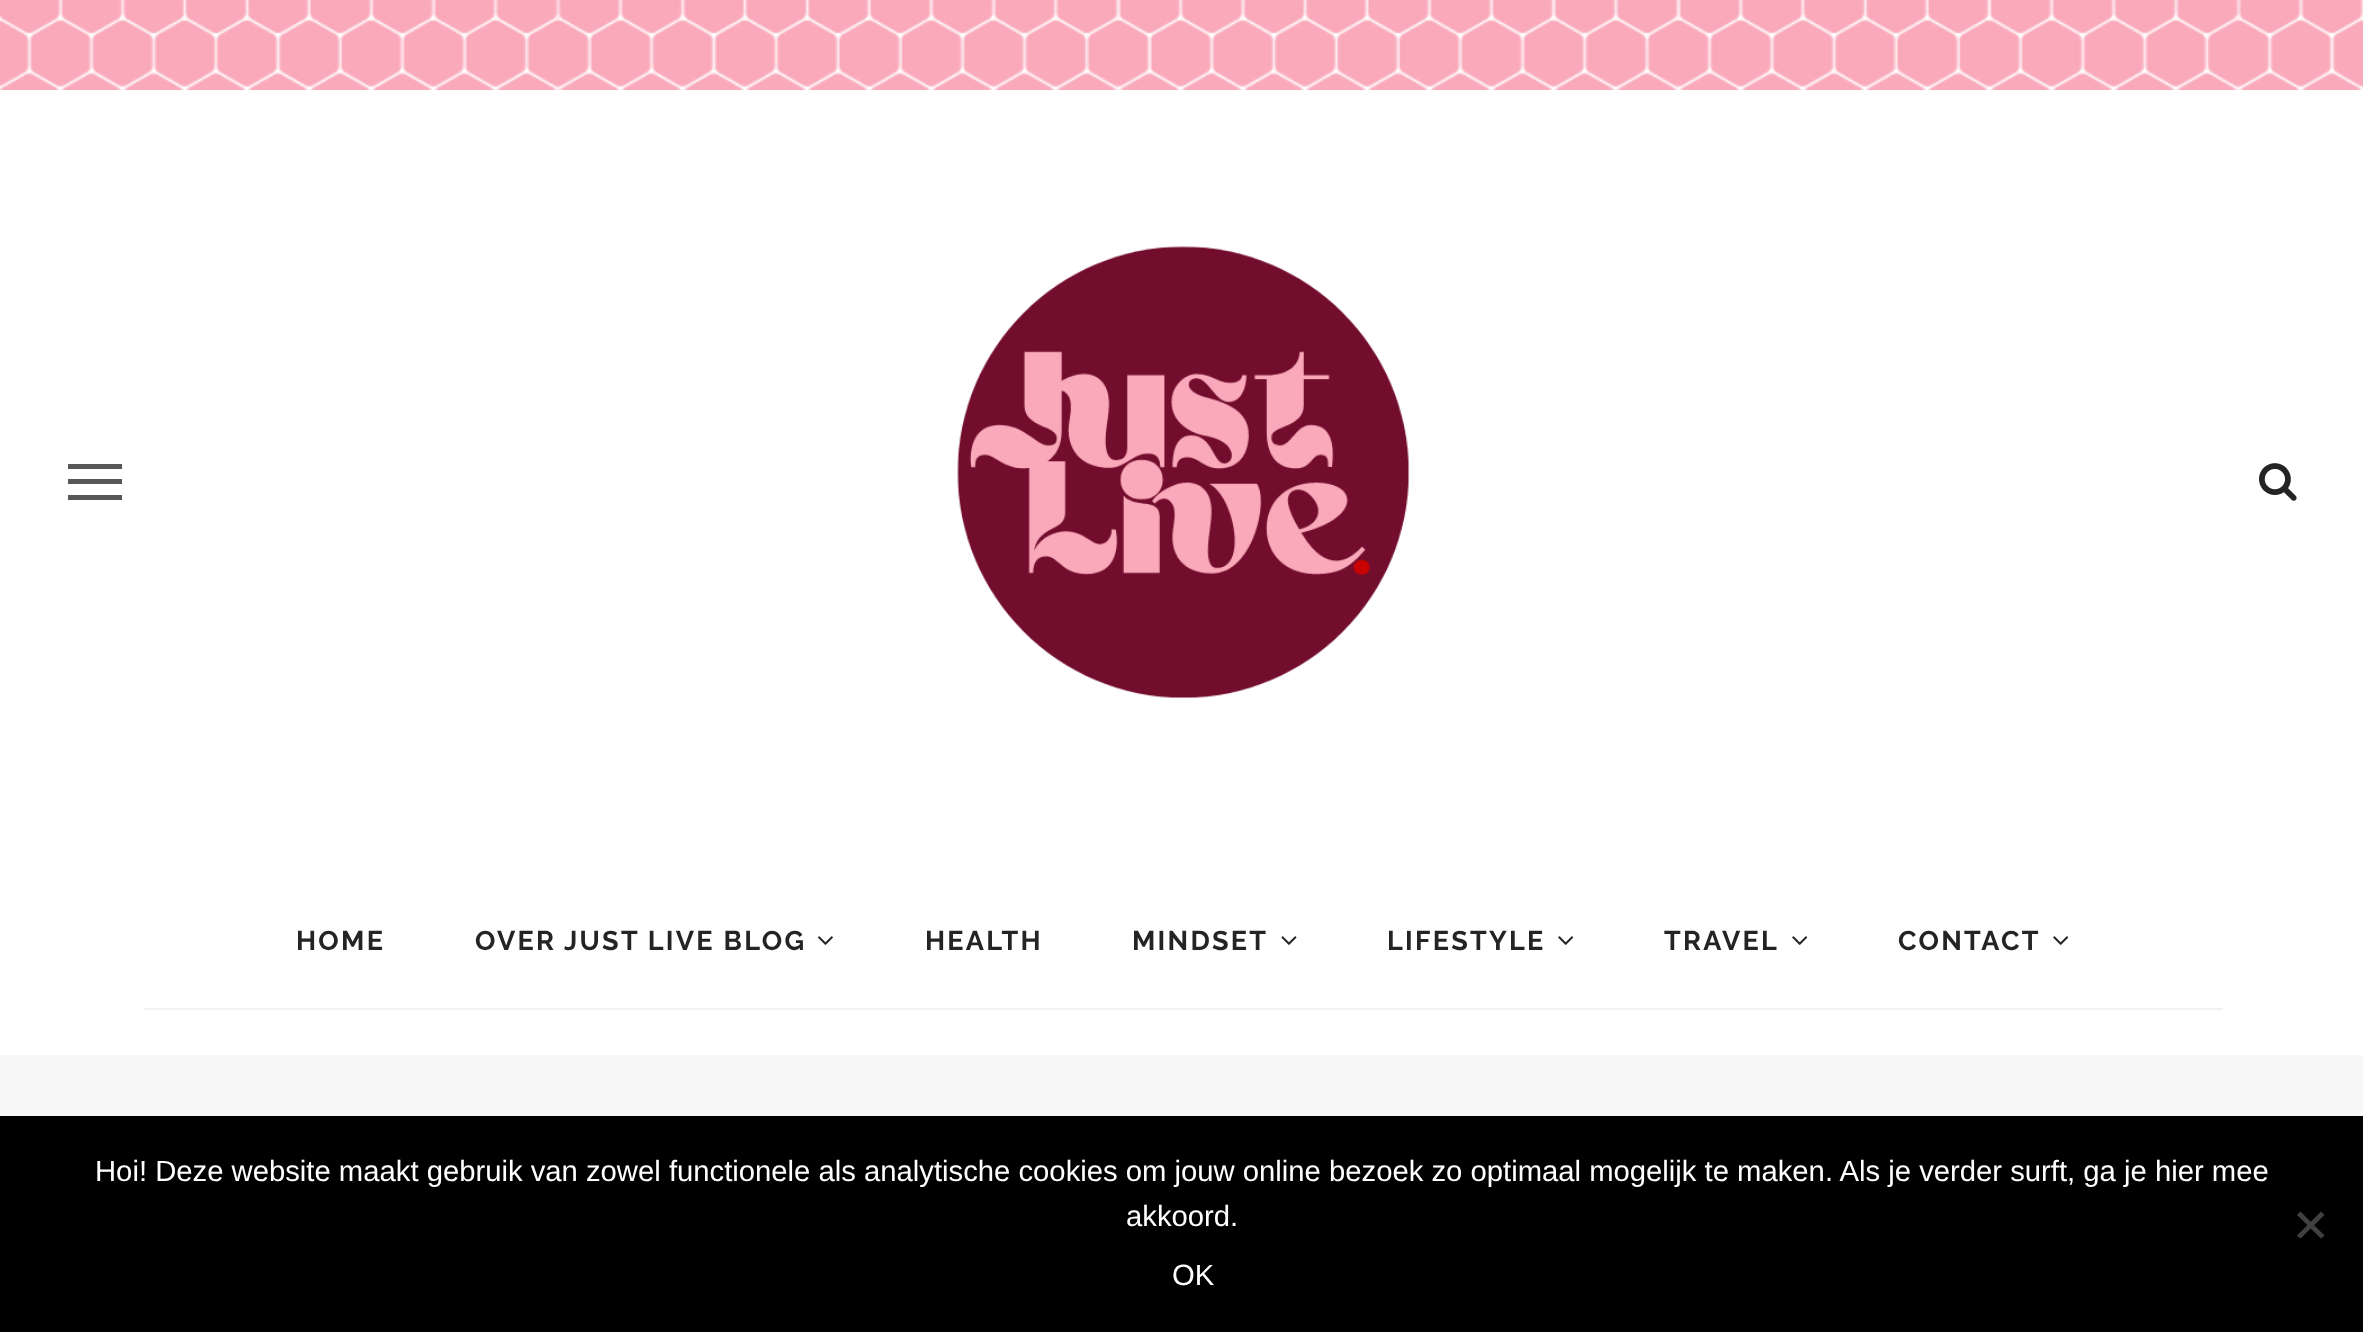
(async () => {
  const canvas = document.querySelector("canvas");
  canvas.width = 2363;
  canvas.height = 1332;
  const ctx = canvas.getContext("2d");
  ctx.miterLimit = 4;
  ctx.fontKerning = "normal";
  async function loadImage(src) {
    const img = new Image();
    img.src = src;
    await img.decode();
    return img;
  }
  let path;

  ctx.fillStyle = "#ffffff";
  ctx.fillRect(0, 0, 2363, 1332);
  ctx.drawImage(await loadImage("img/1.png"), 0, 0, 2363, 90);
  for (const [x, y, w, h, color] of [
    [68, 479, 54, 5, "#585858"],
    [68, 464, 54, 5, "#585858"],
    [68, 495, 54, 5, "#585858"],
  ]) {
    ctx.fillStyle = color;
    ctx.fillRect(x, y, w, h);
  }
  ctx.drawImage(await loadImage("img/2.png"), 957, 246, 453, 453);
  ctx.drawImage(await loadImage("img/3.png"), 2259, 463, 38, 38);
  ctx.fillStyle = "#f2f2f2";
  ctx.fillRect(144, 1008, 2079, 2);
  ctx.drawImage(await loadImage("img/4.png"), 818, 936, 15, 9);
  ctx.drawImage(await loadImage("img/5.png"), 1281, 936, 16, 9);
  ctx.drawImage(await loadImage("img/6.png"), 1558, 936, 16, 9);
  ctx.drawImage(await loadImage("img/6.png"), 1792, 936, 16, 9);
  ctx.drawImage(await loadImage("img/6.png"), 2053, 936, 16, 9);
  ctx.fillStyle = "#f7f7f7";
  ctx.fillRect(0, 1055, 2363, 61);
  ctx.fillStyle = "#000000";
  ctx.fillRect(0, 1116, 2363, 216);
  ctx.fillStyle = "#404040";
  path = new Path2D("M2321 1211.5L2324.5 1215L2300.5 1238.5L2297 1235.5Z");
  ctx.fill(path);
  path = new Path2D("M2297 1215L2300.5 1211.5L2324.5 1235.5L2321 1238.5Z");
  ctx.fill(path);
  ctx.letterSpacing = "2.25px";
  ctx.font = "bold 27px Raleway";
  ctx.fillStyle = "#242424";
  for (const [text, x, y] of [
    ["HOME", 296, 950],
    ["OVER JUST LIVE BLOG", 475, 950],
    ["HEALTH", 925, 950],
    ["MINDSET", 1132, 950],
    ["LIFESTYLE", 1387, 950],
    ["TRAVEL", 1664, 950],
    ["CONTACT", 1898, 950],
  ]) {
    ctx.fillText(text, x, y);
  }
  ctx.letterSpacing = "0px";
  ctx.font = "29.25px Liberation Sans";
  ctx.fillStyle = "#ffffff";
  for (const [text, x, y] of [
    ["Hoi! Deze website maakt gebruik van zowel functionele als analytische cookies om jouw online bezoek zo optimaal mogelijk te maken. Als je verder surft, ga je hier mee", 95, 1181],
    ["akkoord.", 1126, 1226],
    ["OK", 1172, 1285],
  ]) {
    ctx.fillText(text, x, y);
  }
})();
